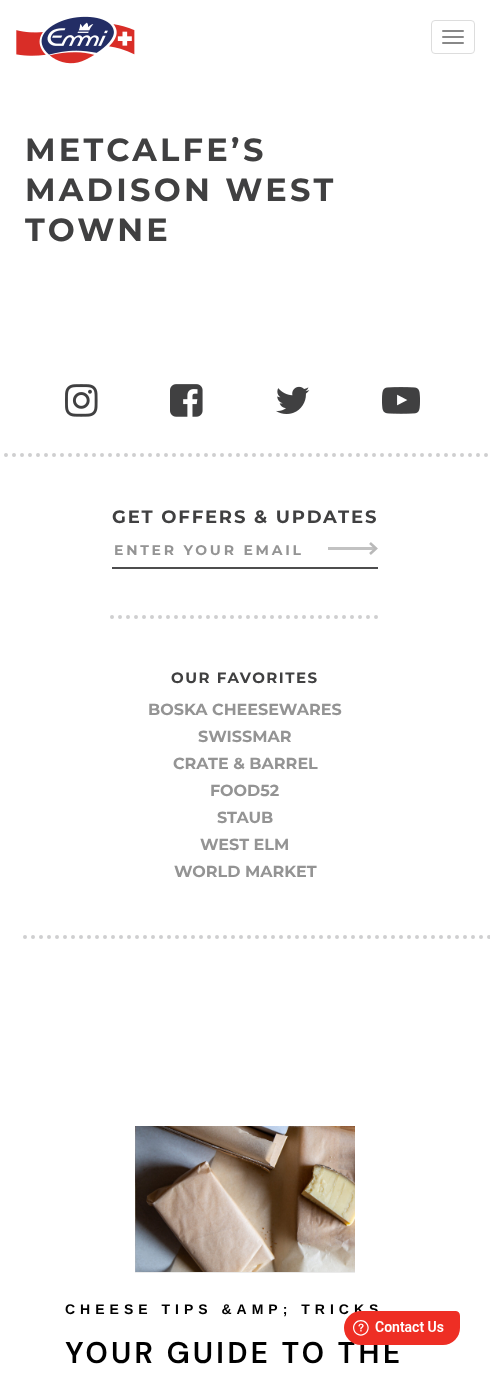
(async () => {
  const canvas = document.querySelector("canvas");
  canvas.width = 490;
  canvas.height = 1381;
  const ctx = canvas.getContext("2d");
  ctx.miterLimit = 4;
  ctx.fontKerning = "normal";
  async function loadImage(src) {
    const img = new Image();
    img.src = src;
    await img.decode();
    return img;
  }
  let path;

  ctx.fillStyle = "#ffffff";
  ctx.fillRect(0, 0, 490, 1381);
  ctx.drawImage(await loadImage("img/1.png"), 16, 16, 119, 48);
  ctx.beginPath();
  ctx.roundRect(431.5, 20.5, 43, 33, 3.5);
  ctx.strokeStyle = "#dddddd";
  ctx.stroke();
  ctx.fillStyle = "#888888";
  ctx.beginPath();
  ctx.roundRect(442, 30, 22, 2, 1);
  ctx.fill();
  ctx.beginPath();
  ctx.roundRect(442, 36, 22, 2, 1);
  ctx.fill();
  ctx.beginPath();
  ctx.roundRect(442, 42, 22, 2, 1);
  ctx.fill();
  ctx.drawImage(await loadImage("img/2.png"), 65, 384, 33, 33);
  ctx.drawImage(await loadImage("img/3.png"), 170, 384, 33, 33);
  ctx.drawImage(await loadImage("img/4.png"), 276, 386, 34, 28);
  ctx.drawImage(await loadImage("img/5.png"), 382, 387, 38, 27);
  path = new Path2D("M-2 455H488");
  ctx.strokeStyle = "#cfcfd0";
  ctx.lineWidth = 4;
  ctx.lineCap = "round";
  ctx.setLineDash([0, 8]);
  ctx.stroke(path);
  ctx.fillStyle = "#4d4d4e";
  ctx.fillRect(112, 567, 266, 2);
  ctx.fillStyle = "#c2c2c2";
  ctx.fillRect(328, 547, 48, 3);
  path = new Path2D("M370 543L376 548.5L370 554");
  ctx.strokeStyle = "#b9b9b9";
  ctx.lineWidth = 2.6;
  ctx.lineCap = "butt";
  ctx.setLineDash([]);
  ctx.stroke(path);
  path = new Path2D("M112 617H378");
  ctx.strokeStyle = "#cfcfd0";
  ctx.lineWidth = 4;
  ctx.lineCap = "round";
  ctx.setLineDash([0, 8]);
  ctx.stroke(path);
  path = new Path2D("M25 937H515");
  ctx.stroke(path);
  ctx.fillStyle = "#ebebeb";
  ctx.fillRect(135, 1272, 220, 1);
  ctx.drawImage(await loadImage("img/6.png"), 135, 1126, 220, 146);
  ctx.letterSpacing = "3.25px";
  ctx.font = "bold 32px Montserrat";
  ctx.fillStyle = "#404041";
  for (const [text, x, y] of [
    ["METCALFE’S", 25, 161],
    ["MADISON WEST", 25, 201],
    ["TOWNE", 25, 241],
  ]) {
    ctx.fillText(text, x, y);
  }
  ctx.letterSpacing = "1.8px";
  ctx.font = "bold 18px Montserrat";
  ctx.fillText("GET OFFERS & UPDATES", 112, 523);
  ctx.letterSpacing = "2.75px";
  ctx.font = "bold 14px Montserrat";
  ctx.fillStyle = "#949494";
  ctx.fillText("ENTER YOUR EMAIL", 114, 555);
  ctx.letterSpacing = "1.5px";
  ctx.font = "bold 15px Montserrat";
  ctx.fillStyle = "#404041";
  ctx.fillText("OUR FAVORITES", 171, 683);
  ctx.letterSpacing = "0px";
  ctx.font = "bold 16px Montserrat";
  ctx.fillStyle = "#949494";
  for (const [text, x, y] of [
    ["BOSKA CHEESEWARES", 148, 715],
    ["SWISSMAR", 198, 742],
    ["CRATE & BARREL", 173, 769],
    ["FOOD52", 210, 796],
    ["STAUB", 217, 823],
    ["WEST ELM", 200, 850],
    ["WORLD MARKET", 174, 877],
  ]) {
    ctx.fillText(text, x, y);
  }
  ctx.letterSpacing = "5px";
  ctx.font = "bold 14px Liberation Sans";
  ctx.fillStyle = "#000000";
  ctx.fillText("CHEESE TIPS &AMP; TRICKS", 65, 1314);
  ctx.letterSpacing = "3px";
  ctx.font = "600 30px DM Sans";
  ctx.fillText("YOUR GUIDE TO THE", 65, 1363);
  ctx.drawImage(await loadImage("img/7.png"), 344, 1311, 116, 34);
})();
